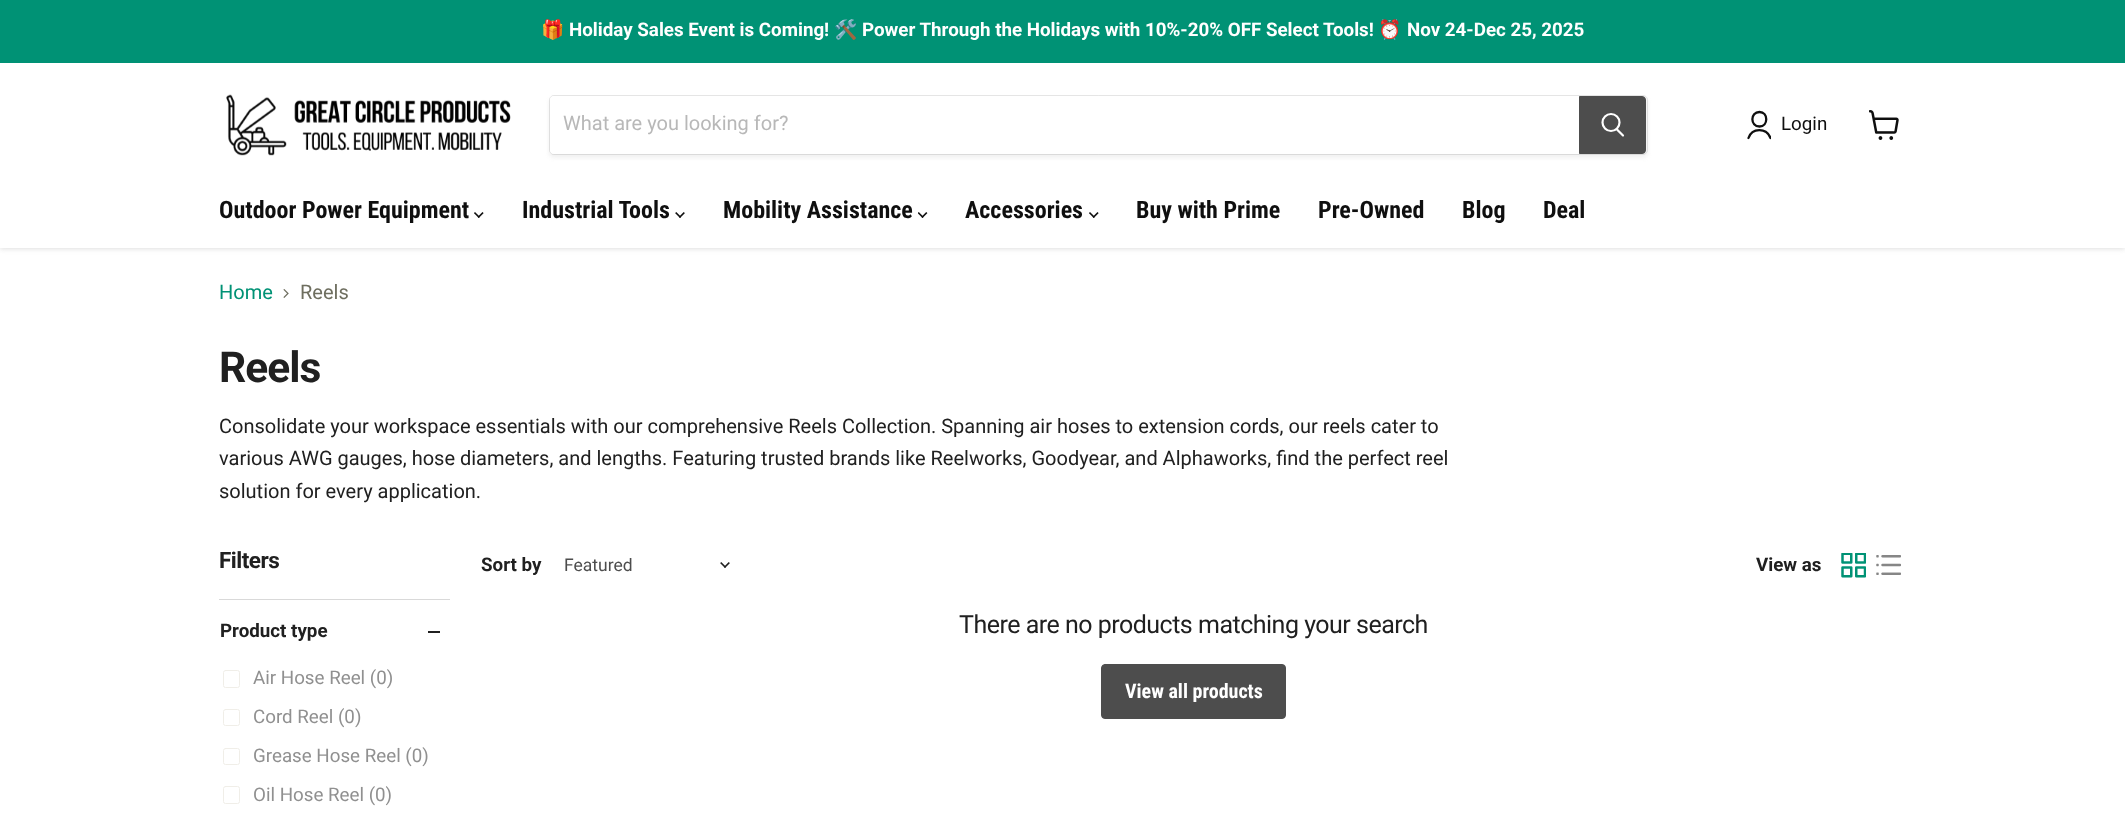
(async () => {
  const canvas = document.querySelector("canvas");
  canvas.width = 2125;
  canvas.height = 822;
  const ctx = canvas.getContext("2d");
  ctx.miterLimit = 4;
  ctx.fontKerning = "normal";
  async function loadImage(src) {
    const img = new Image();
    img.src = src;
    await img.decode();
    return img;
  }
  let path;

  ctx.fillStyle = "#ffffff";
  ctx.fillRect(0, 0, 2125, 822);
  ctx.fillStyle = "rgba(128, 128, 128, 0.25)";
  ctx.filter = "blur(2.5px)";
  ctx.beginPath();
  ctx.rect(0, 64, 2125, 185);
  ctx.fill();
  ctx.filter = "none";
  ctx.fillStyle = "#009275";
  ctx.fillRect(0, 0, 2125, 63);
  ctx.fillStyle = "#ffffff";
  ctx.fillRect(0, 63, 2125, 185);
  ctx.drawImage(await loadImage("img/1.png"), 226, 94, 285, 62);
  ctx.fillStyle = "rgba(128, 128, 128, 0.11)";
  ctx.filter = "blur(2px)";
  ctx.beginPath();
  ctx.roundRect(549, 98, 1099, 60, 5);
  ctx.fill();
  ctx.filter = "none";
  ctx.beginPath();
  ctx.roundRect(549.5, 95.5, 1098, 59, 4.5);
  ctx.strokeStyle = "rgba(128, 128, 128, 0.2)";
  ctx.stroke();
  ctx.fillStyle = "#ffffff";
  ctx.beginPath();
  ctx.roundRect(550, 96, 1029, 58, [4, 0, 0, 4]);
  ctx.fill();
  ctx.fillStyle = "#4d4d4d";
  ctx.beginPath();
  ctx.roundRect(1579.5, 96.5, 66, 57, [0, 3.5, 3.5, 0]);
  ctx.fill();
  ctx.strokeStyle = "#4d4d4d";
  ctx.stroke();
  path = new Path2D("M1623 135.5L1617 129.5");
  ctx.strokeStyle = "#ffffff";
  ctx.lineWidth = 2.2;
  ctx.lineCap = "round";
  ctx.stroke(path);
  ctx.beginPath();
  ctx.arc(1611, 122.5, 8.5, 0, Math.PI * 2);
  ctx.stroke();
  path = new Path2D("M1759.5 126.5C1768.5 126.5 1768.5 112 1759.5 112C1750 112 1750 126.5 1759.5 126.5Z");
  ctx.strokeStyle = "#0f0f0f";
  ctx.lineWidth = 2.3;
  ctx.lineJoin = "round";
  ctx.stroke(path);
  ctx.save();
  ctx.beginPath();
  ctx.rect(1746, 110, 25, 30);
  ctx.clip();
  path = new Path2D("M1770.5 138C1766.5 127.5 1752 127.5 1748.5 138");
  ctx.stroke(path);
  ctx.restore();
  ctx.drawImage(await loadImage("img/2.png"), 1869, 110, 30, 30);
  ctx.drawImage(await loadImage("img/3.png"), 474, 212, 10, 6);
  ctx.drawImage(await loadImage("img/4.png"), 675, 212, 10, 6);
  ctx.drawImage(await loadImage("img/5.png"), 918, 212, 10, 6);
  ctx.drawImage(await loadImage("img/3.png"), 1089, 212, 10, 6);
  ctx.drawImage(await loadImage("img/6.png"), 283, 289, 6, 9);
  ctx.fillStyle = "#d9d9d9";
  ctx.fillRect(219, 599, 231, 1);
  ctx.fillStyle = "#202020";
  ctx.fillRect(428, 631, 12, 2);
  ctx.beginPath();
  ctx.roundRect(223.5, 670.5, 16, 17, 2);
  ctx.strokeStyle = "#f0eee8";
  ctx.lineWidth = 1;
  ctx.lineJoin = "miter";
  ctx.stroke();
  ctx.beginPath();
  ctx.roundRect(223.5, 709.5, 16, 16, 2);
  ctx.stroke();
  ctx.beginPath();
  ctx.roundRect(223.5, 748.5, 16, 16, 2);
  ctx.stroke();
  ctx.beginPath();
  ctx.roundRect(223.5, 786.5, 16, 17, 2);
  ctx.stroke();
  ctx.drawImage(await loadImage("img/7.png"), 720, 562, 10, 6);
  ctx.drawImage(await loadImage("img/8.png"), 1841, 553, 25, 25);
  ctx.drawImage(await loadImage("img/9.png"), 1876, 555, 25, 20);
  ctx.fillStyle = "#4d4d4d";
  ctx.beginPath();
  ctx.roundRect(1101.5, 664.5, 184, 54, 3.5);
  ctx.fill();
  ctx.strokeStyle = "#4d4d4d";
  ctx.stroke();
  ctx.font = "bold 18.75px Noto Color Emoji";
  ctx.fillStyle = "#ffffff";
  ctx.fillText("🎁", 541, 36);
  ctx.font = "bold 18.75px Roboto";
  ctx.fillText("Holiday Sales Event is Coming!", 569, 36);
  ctx.font = "bold 18.75px Noto Color Emoji";
  ctx.fillText("🛠️", 834, 36);
  ctx.font = "bold 18.75px Roboto";
  ctx.fillText("Power Through the Holidays with 10%-20% OFF Select Tools!", 862, 36);
  ctx.font = "bold 18.75px Noto Color Emoji";
  ctx.fillText("⏰", 1378, 36);
  ctx.font = "bold 18.75px Roboto";
  ctx.fillText("Nov 24-Dec 25, 2025", 1407, 36);
  ctx.font = "20px Roboto";
  ctx.fillStyle = "#b8b8b8";
  ctx.fillText("What are you looking for?", 563, 130);
  ctx.font = "18.75px Roboto";
  ctx.fillStyle = "#0f0f0f";
  ctx.fillText("Login", 1781, 130);
  ctx.font = "bold 24px Roboto Condensed";
  for (const [text, x, y] of [
    ["Outdoor Power Equipment", 219, 218],
    ["Industrial Tools", 522, 218],
    ["Mobility Assistance", 723, 218],
    ["Accessories", 965, 218],
    ["Buy with Prime", 1136, 218],
    ["Pre-Owned", 1318, 218],
    ["Blog", 1462, 218],
    ["Deal", 1543, 218],
  ]) {
    ctx.fillText(text, x, y);
  }
  ctx.font = "20px Roboto";
  ctx.fillStyle = "#009275";
  ctx.fillText("Home", 219, 299);
  ctx.fillStyle = "#6e6e5f";
  ctx.fillText("Reels", 300, 299);
  ctx.letterSpacing = "-1px";
  ctx.font = "bold 42.5px Roboto";
  ctx.fillStyle = "#202020";
  ctx.fillText("Reels", 219, 382);
  ctx.letterSpacing = "0px";
  ctx.font = "20px Roboto";
  for (const [text, x, y] of [
    ["Consolidate your workspace essentials with our comprehensive Reels Collection. Spanning air hoses to extension cords, our reels cater to", 219, 433],
    ["various AWG gauges, hose diameters, and lengths. Featuring trusted brands like Reelworks, Goodyear, and Alphaworks, find the perfect reel", 219, 465],
    ["solution for every application.", 219, 498],
  ]) {
    ctx.fillText(text, x, y);
  }
  ctx.letterSpacing = "-0.5px";
  ctx.font = "bold 22.5px Roboto";
  ctx.fillText("Filters", 219, 568);
  ctx.letterSpacing = "0px";
  ctx.font = "bold 18.75px Roboto";
  ctx.fillText("Product type", 220, 637);
  ctx.font = "18.75px Roboto";
  ctx.fillStyle = "#909090";
  for (const [text, x, y] of [
    ["Air Hose Reel (0)", 253, 684],
    ["Cord Reel (0)", 253, 723],
    ["Grease Hose Reel (0)", 253, 762],
    ["Oil Hose Reel (0)", 253, 801],
  ]) {
    ctx.fillText(text, x, y);
  }
  ctx.font = "bold 18.75px Roboto";
  ctx.fillStyle = "#202020";
  ctx.fillText("Sort by", 481, 571);
  ctx.font = "17.5px Roboto";
  ctx.fillStyle = "#4d4d4d";
  ctx.fillText("Featured", 564, 571);
  ctx.font = "bold 18.75px Roboto";
  ctx.fillStyle = "#202020";
  ctx.fillText("View as", 1756, 571);
  ctx.letterSpacing = "-0.5px";
  ctx.font = "25px Roboto";
  ctx.fillText("There are no products matching your search", 959, 633);
  ctx.letterSpacing = "0px";
  ctx.font = "bold 20px Roboto Condensed";
  ctx.fillStyle = "#ffffff";
  ctx.fillText("View all products", 1125, 698);
})();
